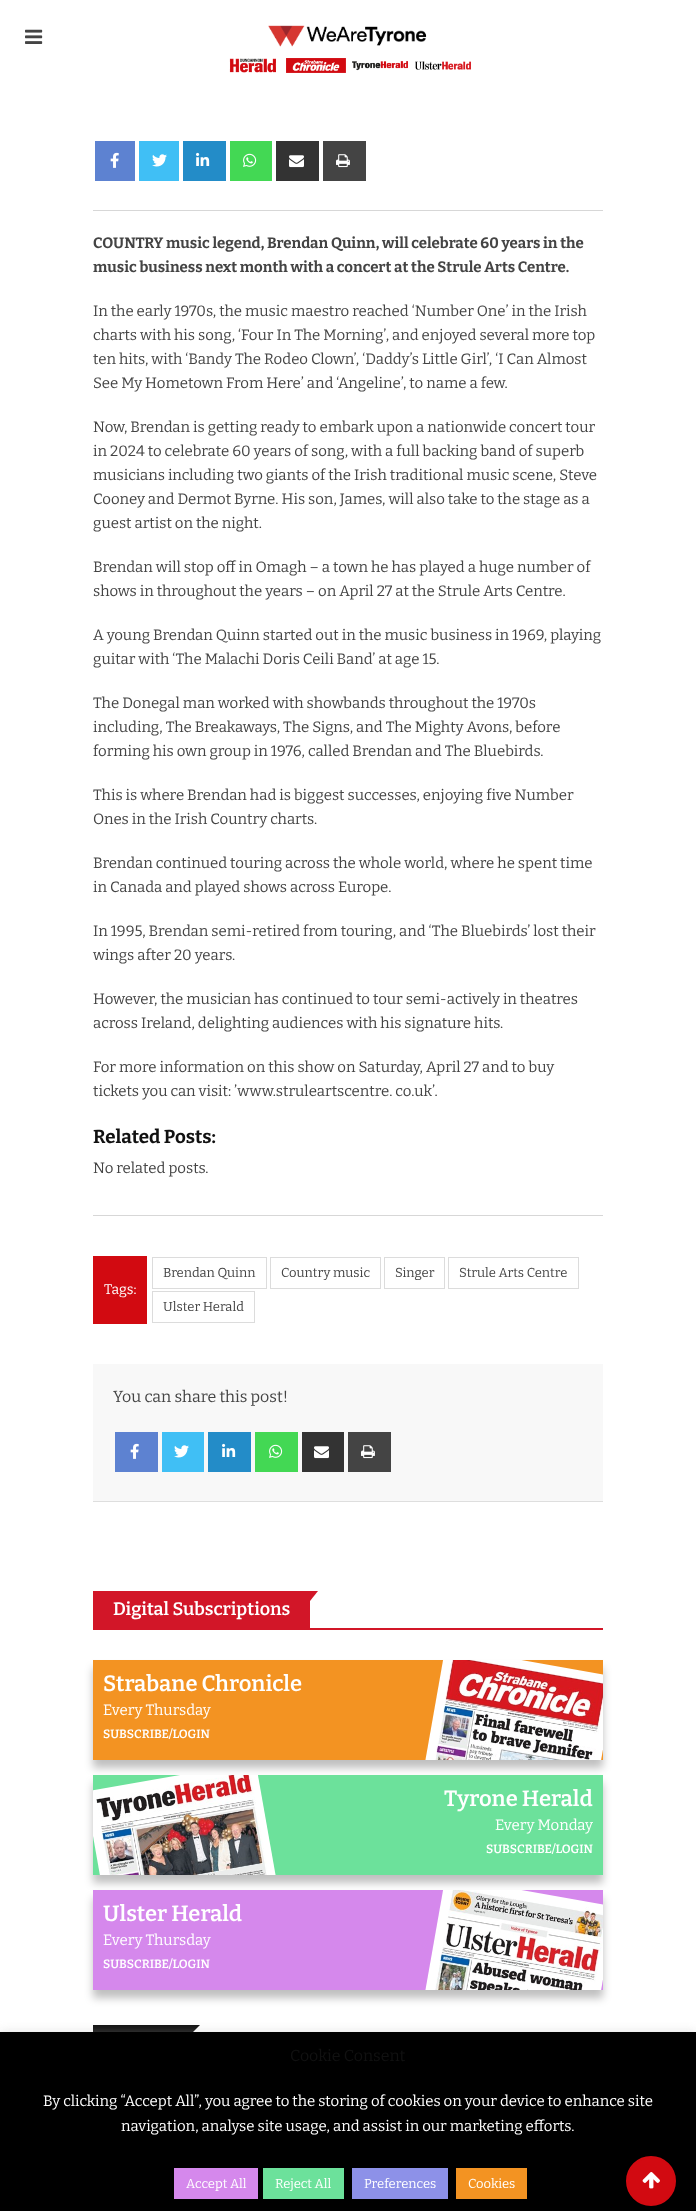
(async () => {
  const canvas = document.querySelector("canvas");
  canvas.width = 696;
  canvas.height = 2211;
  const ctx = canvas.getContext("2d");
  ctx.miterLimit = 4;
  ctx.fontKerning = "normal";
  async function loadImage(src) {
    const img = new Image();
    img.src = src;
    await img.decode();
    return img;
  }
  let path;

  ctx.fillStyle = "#ffffff";
  ctx.fillRect(0, 0, 696, 2211);
  ctx.drawImage(await loadImage("img/1.png"), 25, 29, 18, 15);
  ctx.drawImage(await loadImage("img/2.png"), 268, 25, 159, 22);
  ctx.drawImage(await loadImage("img/3.png"), 229, 58, 47, 15);
  ctx.drawImage(await loadImage("img/4.png"), 286, 58, 60, 15);
  ctx.drawImage(await loadImage("img/5.png"), 352, 61, 56, 10);
  ctx.drawImage(await loadImage("img/6.png"), 415, 61, 56, 9);
  ctx.fillStyle = "#5d82d1";
  ctx.fillRect(95, 141, 40, 40);
  ctx.drawImage(await loadImage("img/7.png"), 110, 152, 9, 16);
  ctx.fillStyle = "#40bff5";
  ctx.fillRect(139, 141, 40, 40);
  ctx.drawImage(await loadImage("img/8.png"), 152, 154, 15, 13);
  ctx.fillStyle = "#238cc8";
  ctx.fillRect(183, 141, 43, 40);
  ctx.drawImage(await loadImage("img/9.png"), 196, 152, 14, 14);
  ctx.fillStyle = "#43d854";
  ctx.fillRect(230, 141, 42, 40);
  ctx.drawImage(await loadImage("img/10.png"), 243, 153, 14, 14);
  ctx.fillStyle = "#333333";
  ctx.fillRect(276, 141, 43, 40);
  ctx.drawImage(await loadImage("img/11.png"), 289, 155, 15, 13);
  ctx.fillStyle = "#444444";
  ctx.fillRect(323, 141, 43, 40);
  ctx.drawImage(await loadImage("img/12.png"), 336, 154, 14, 14);
  for (const [x, y, w, h, color] of [
    [93, 210, 510, 1, "#d7d7d7"],
    [93, 1215, 510, 1, "#d7d7d7"],
    [93, 1256, 54, 68, "#d20a11"],
  ]) {
    ctx.fillStyle = color;
    ctx.fillRect(x, y, w, h);
  }
  ctx.strokeStyle = "#dcdcdc";
  ctx.strokeRect(152.5, 1257.5, 114, 31);
  ctx.strokeRect(270.5, 1257.5, 110, 31);
  ctx.strokeRect(384.5, 1257.5, 60, 31);
  ctx.strokeRect(448.5, 1257.5, 130, 31);
  ctx.strokeRect(152.5, 1291.5, 102, 31);
  for (const [x, y, w, h, color] of [
    [93, 1501, 510, 1, "#dedede"],
    [93, 1364, 510, 137, "#f8f8f8"],
    [115, 1432, 43, 40, "#5d82d1"],
  ]) {
    ctx.fillStyle = color;
    ctx.fillRect(x, y, w, h);
  }
  ctx.drawImage(await loadImage("img/7.png"), 130, 1443, 9, 16);
  ctx.fillStyle = "#40bff5";
  ctx.fillRect(162, 1432, 42, 40);
  ctx.drawImage(await loadImage("img/8.png"), 174, 1445, 15, 13);
  ctx.fillStyle = "#238cc8";
  ctx.fillRect(208, 1432, 43, 40);
  ctx.drawImage(await loadImage("img/9.png"), 222, 1443, 14, 14);
  ctx.fillStyle = "#43d854";
  ctx.fillRect(255, 1432, 43, 40);
  ctx.drawImage(await loadImage("img/10.png"), 269, 1444, 14, 14);
  ctx.fillStyle = "#333333";
  ctx.fillRect(302, 1432, 42, 40);
  ctx.drawImage(await loadImage("img/11.png"), 314, 1446, 15, 13);
  ctx.fillStyle = "#444444";
  ctx.fillRect(348, 1432, 43, 40);
  ctx.drawImage(await loadImage("img/12.png"), 361, 1445, 14, 14);
  ctx.fillStyle = "#d21628";
  ctx.fillRect(93, 1628, 510, 2);
  ctx.fillRect(93, 1591, 217, 37);
  path = new Path2D("M310 1591H318L310 1601Z");
  ctx.fill(path);
  ctx.fillStyle = "rgba(0, 0, 0, 0.25)";
  ctx.filter = "blur(4px)";
  ctx.beginPath();
  ctx.rect(93, 1668, 510, 100);
  ctx.fill();
  ctx.filter = "none";
  ctx.fillStyle = "#f39322";
  ctx.fillRect(93, 1660, 510, 100);
  ctx.drawImage(await loadImage("img/13.png"), 425, 1660, 178, 100);
  ctx.fillStyle = "rgba(0, 0, 0, 0.25)";
  ctx.filter = "blur(4px)";
  ctx.beginPath();
  ctx.rect(93, 1783, 510, 100);
  ctx.fill();
  ctx.filter = "none";
  ctx.fillStyle = "#6ce19b";
  ctx.fillRect(93, 1775, 510, 100);
  ctx.drawImage(await loadImage("img/14.png"), 93, 1775, 183, 100);
  ctx.fillStyle = "rgba(0, 0, 0, 0.25)";
  ctx.filter = "blur(4px)";
  ctx.beginPath();
  ctx.rect(93, 1898, 510, 100);
  ctx.fill();
  ctx.filter = "none";
  ctx.fillStyle = "#d588ec";
  ctx.fillRect(93, 1890, 510, 100);
  ctx.drawImage(await loadImage("img/15.png"), 425, 1890, 178, 100);
  ctx.fillStyle = "#111111";
  ctx.fillRect(93, 2025, 99, 7);
  path = new Path2D("M192 2025H200L192 2033Z");
  ctx.fill(path);
  ctx.fillStyle = "rgba(172, 171, 171, 0.3)";
  ctx.filter = "blur(5px)";
  ctx.beginPath();
  ctx.rect(0, 2031, 696, 179);
  ctx.fill();
  ctx.filter = "none";
  for (const [x, y, w, h, color] of [
    [0, 2032, 696, 179, "#000000"],
    [174, 2168, 84, 31, "#d588ec"],
    [263, 2168, 81, 31, "#6ce19b"],
    [352, 2168, 96, 31, "#8d91e8"],
    [456, 2168, 71, 31, "#f39322"],
  ]) {
    ctx.fillStyle = color;
    ctx.fillRect(x, y, w, h);
  }
  ctx.fillStyle = "#d20a11";
  ctx.beginPath();
  ctx.arc(651, 2181, 24, 0, Math.PI * 2);
  ctx.fill();
  ctx.strokeStyle = "#d20a11";
  ctx.lineWidth = 2;
  ctx.stroke();
  ctx.drawImage(await loadImage("img/16.png"), 642, 2172, 18, 17);
  ctx.font = "bold 15px Bitter";
  ctx.fillStyle = "#444444";
  ctx.fillText("COUNTRY music legend, Brendan Quinn, will celebrate 60 years in the", 93, 248);
  ctx.fillText("music business next month with a concert at the Strule Arts Centre.", 93, 272);
  ctx.font = "15px Bitter";
  for (const [text, x, y] of [
    ["In the early 1970s, the music maestro reached ‘Number One’ in the Irish", 93, 316],
    ["charts with his song, ‘Four In The Morning’, and enjoyed several more top", 93, 340],
    ["ten hits, with ‘Bandy The Rodeo Clown’, ‘Daddy’s Little Girl’, ‘I Can Almost", 93, 364],
    ["See My Hometown From Here’ and ‘Angeline’, to name a few.", 93, 388],
    ["Now, Brendan is getting ready to embark upon a nationwide concert tour", 93, 432],
    ["in 2024 to celebrate 60 years of song, with a full backing band of superb", 93, 456],
    ["musicians including two giants of the Irish traditional music scene, Steve", 93, 480],
    ["Cooney and Dermot Byrne. His son, James, will also take to the stage as a", 93, 504],
    ["guest artist on the night.", 93, 528],
    ["Brendan will stop off in Omagh – a town he has played a huge number of", 93, 572],
    ["shows in throughout the years – on April 27 at the Strule Arts Centre.", 93, 596],
    ["A young Brendan Quinn started out in the music business in 1969, playing", 93, 640],
    ["guitar with ‘The Malachi Doris Ceili Band’ at age 15.", 93, 664],
    ["The Donegal man worked with showbands throughout the 1970s", 93, 708],
    ["including, The Breakaways, The Signs, and The Mighty Avons, before", 93, 732],
    ["forming his own group in 1976, called Brendan and The Bluebirds.", 93, 756],
    ["This is where Brendan had is biggest successes, enjoying five Number", 93, 800],
    ["Ones in the Irish Country charts.", 93, 824],
    ["Brendan continued touring across the whole world, where he spent time", 93, 868],
    ["in Canada and played shows across Europe.", 93, 892],
    ["In 1995, Brendan semi-retired from touring, and ‘The Bluebirds’ lost their", 93, 936],
    ["wings after 20 years.", 93, 960],
    ["However, the musician has continued to tour semi-actively in theatres", 93, 1004],
    ["across Ireland, delighting audiences with his signature hits.", 93, 1028],
    ["For more information on this show on Saturday, April 27 and to buy", 93, 1072],
    ["tickets you can visit: ’www.struleartscentre. co.uk’.", 93, 1096],
  ]) {
    ctx.fillText(text, x, y);
  }
  ctx.font = "bold 18.75px Bitter";
  ctx.fillStyle = "#111111";
  ctx.fillText("Related Posts:", 93, 1143);
  ctx.font = "15px Bitter";
  ctx.fillStyle = "#444444";
  ctx.fillText("No related posts.", 93, 1173);
  ctx.font = "14px Bitter";
  ctx.fillStyle = "#ffffff";
  ctx.fillText("Tags:", 104, 1294);
  ctx.font = "13px Bitter";
  ctx.fillStyle = "#444444";
  for (const [text, x, y] of [
    ["Brendan Quinn", 163, 1277],
    ["Country music", 281, 1277],
    ["Singer", 395, 1277],
    ["Strule Arts Centre", 459, 1277],
    ["Ulster Herald", 163, 1311],
  ]) {
    ctx.fillText(text, x, y);
  }
  ctx.font = "16px Bitter";
  ctx.fillText("You can share this post!", 113, 1402);
  ctx.font = "600 18px Bitter";
  ctx.fillStyle = "#ffffff";
  ctx.fillText("Digital Subscriptions", 113, 1615);
  ctx.font = "600 22px Bitter";
  ctx.fillText("Strabane Chronicle", 103, 1691);
  ctx.font = "15px Bitter";
  ctx.fillText("Every Thursday", 103, 1715);
  ctx.font = "600 12px Bitter";
  ctx.fillText("SUBSCRIBE/LOGIN", 103, 1738);
  ctx.font = "600 22px Bitter";
  ctx.fillText("Tyrone Herald", 444, 1806);
  ctx.font = "15px Bitter";
  ctx.fillText("Every Monday", 495, 1830);
  ctx.font = "600 12px Bitter";
  ctx.fillText("SUBSCRIBE/LOGIN", 486, 1853);
  ctx.font = "600 22px Bitter";
  ctx.fillText("Ulster Herald", 103, 1921);
  ctx.font = "15px Bitter";
  ctx.fillText("Every Thursday", 103, 1945);
  ctx.font = "600 12px Bitter";
  ctx.fillText("SUBSCRIBE/LOGIN", 103, 1968);
  ctx.font = "16px Bitter";
  ctx.fillStyle = "#111111";
  ctx.fillText("Cookie Consent", 290, 2061);
  ctx.font = "15px Bitter";
  ctx.fillStyle = "#ffffff";
  ctx.fillText("By clicking “Accept All”, you agree to the storing of cookies on your device to enhance site", 43, 2106);
  ctx.fillText("navigation, analyse site usage, and assist in our marketing efforts.", 121, 2131);
  ctx.font = "13px Bitter";
  for (const [text, x, y] of [
    ["Accept All", 186, 2188],
    ["Reject All", 275, 2188],
    ["Preferences", 364, 2188],
    ["Cookies", 468, 2188],
  ]) {
    ctx.fillText(text, x, y);
  }
})();
